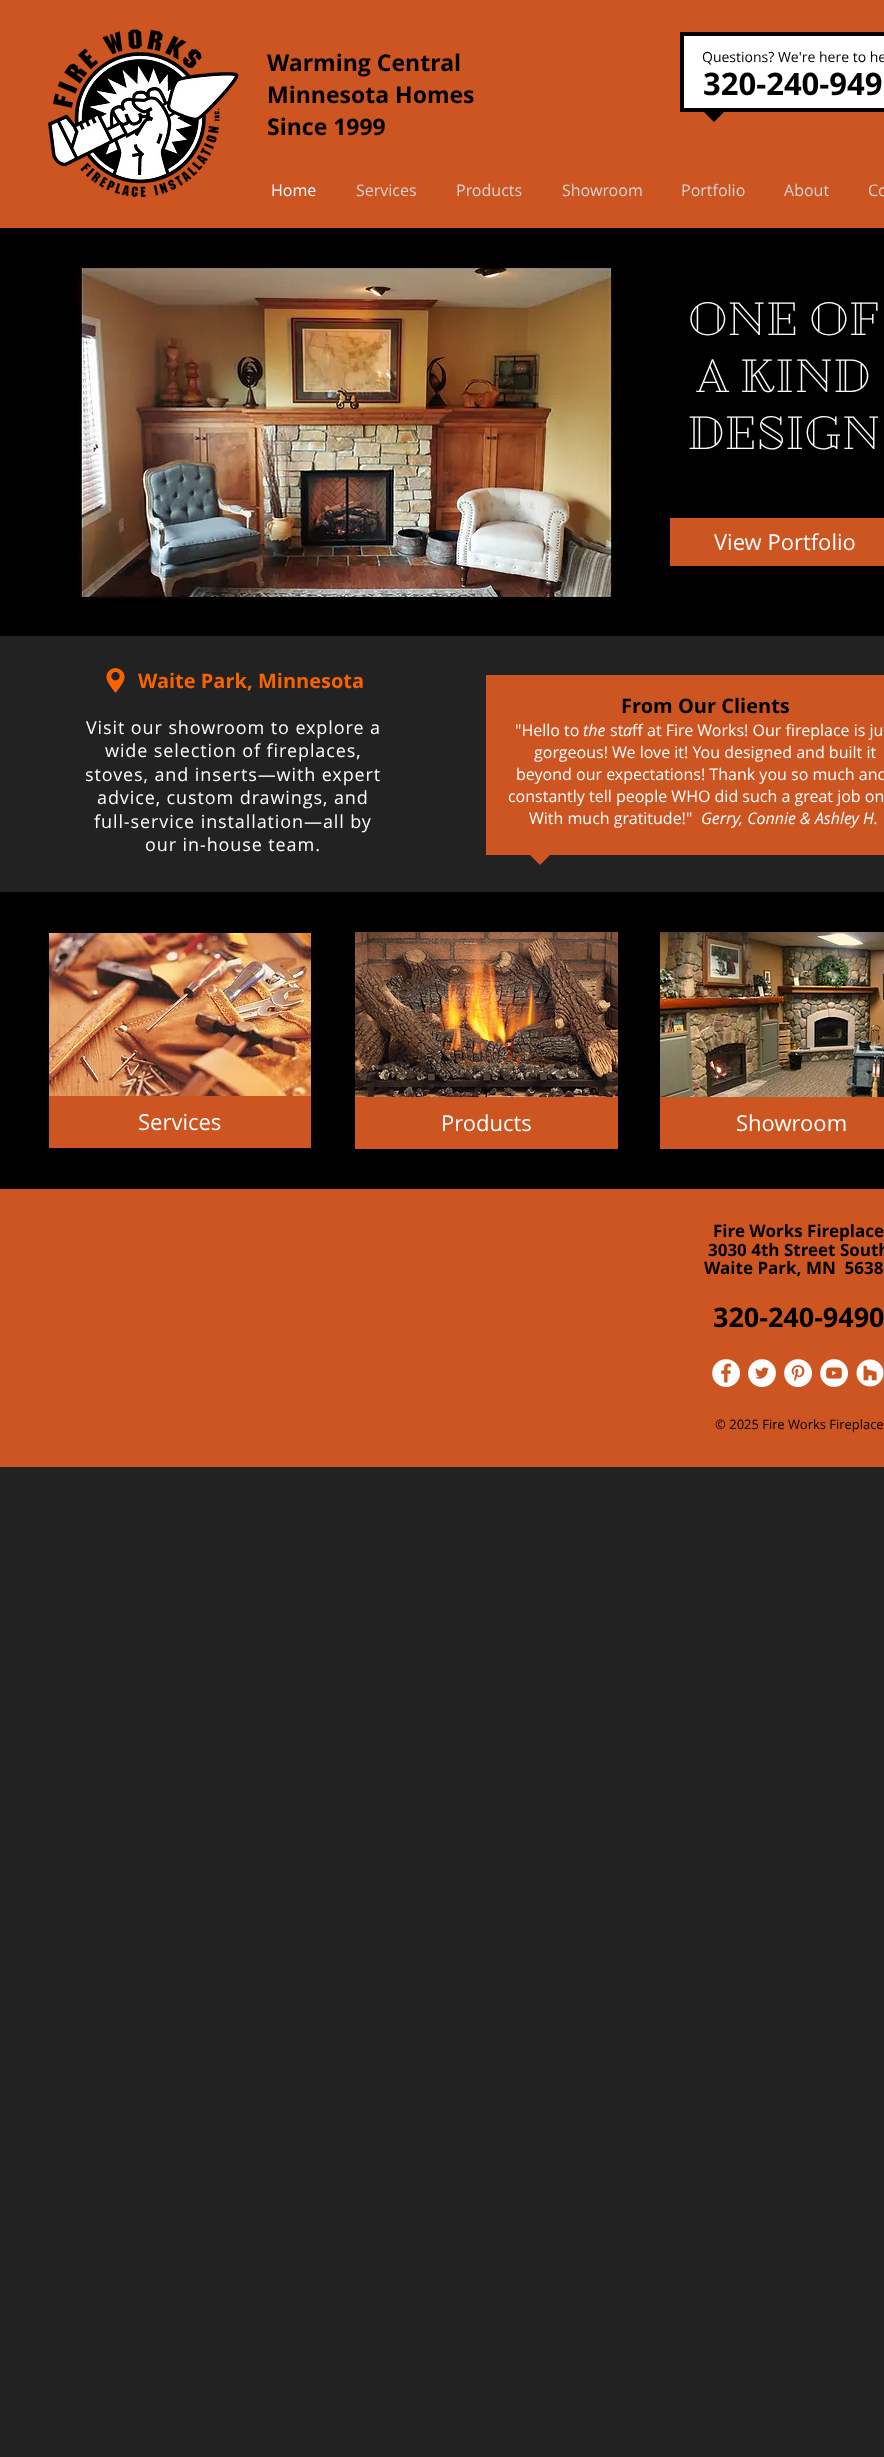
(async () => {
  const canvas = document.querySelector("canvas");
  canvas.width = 884;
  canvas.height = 2457;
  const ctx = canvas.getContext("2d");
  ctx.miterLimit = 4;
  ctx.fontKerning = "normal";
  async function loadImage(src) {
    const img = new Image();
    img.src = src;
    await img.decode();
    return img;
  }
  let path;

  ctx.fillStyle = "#222222";
  ctx.fillRect(0, 0, 884, 2457);
  ctx.fillStyle = "#cc5522";
  ctx.fillRect(0, 0, 884, 228);
  ctx.drawImage(await loadImage("img/1.png"), 48, 29, 191, 169);
  ctx.fillStyle = "#ffffff";
  ctx.beginPath();
  ctx.rect(682, 34, 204, 76);
  ctx.fill();
  ctx.strokeStyle = "#000000";
  ctx.lineWidth = 4;
  ctx.stroke();
  ctx.fillStyle = "#000000";
  path = new Path2D("M704 112H724L714 122Z");
  ctx.fill(path);
  ctx.fillRect(0, 228, 884, 408);
  ctx.drawImage(await loadImage("img/2.png"), 76, 264, 538, 335);
  ctx.fillStyle = "#cc5522";
  ctx.fillRect(670, 518, 214, 48);
  ctx.drawImage(await loadImage("img/3.png"), 106, 668, 19, 25);
  ctx.fillRect(486, 675, 398, 180);
  path = new Path2D("M530 855H550L540 865Z");
  ctx.fill(path);
  ctx.fillStyle = "#000000";
  ctx.fillRect(0, 892, 884, 297);
  ctx.drawImage(await loadImage("img/4.png"), 49, 933, 262, 163);
  ctx.drawImage(await loadImage("img/5.png"), 355, 932, 263, 165);
  ctx.drawImage(await loadImage("img/6.png"), 660, 932, 224, 165);
  for (const [x, y, w, h, color] of [
    [49, 1096, 262, 52, "#cc5522"],
    [355, 1097, 263, 52, "#cc5522"],
    [660, 1097, 224, 52, "#cc5522"],
    [0, 1189, 884, 278, "#cc5522"],
  ]) {
    ctx.fillStyle = color;
    ctx.fillRect(x, y, w, h);
  }
  ctx.drawImage(await loadImage("img/7.png"), 712, 1359, 28, 28);
  ctx.drawImage(await loadImage("img/8.png"), 748, 1359, 28, 28);
  ctx.drawImage(await loadImage("img/9.png"), 784, 1359, 28, 28);
  ctx.drawImage(await loadImage("img/10.png"), 820, 1359, 28, 28);
  ctx.drawImage(await loadImage("img/11.png"), 856, 1359, 28, 28);
  ctx.font = "bold 23px Open Sans";
  ctx.fillStyle = "#000000";
  for (const [text, x, y] of [
    ["Warming Central", 267, 71],
    ["Minnesota Homes", 267, 103],
    ["Since 1999", 267, 135],
  ]) {
    ctx.fillText(text, x, y);
  }
  ctx.font = "14px 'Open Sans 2'";
  ctx.fillText("Questions? We're here to he", 702, 62);
  ctx.font = "bold 31px 'Open Sans 2'";
  ctx.fillText("320-240-949", 703, 95);
  ctx.font = "16px Open Sans";
  ctx.fillStyle = "#fdfdfe";
  ctx.fillText("Home", 271, 196);
  ctx.fillStyle = "#d4d4d4";
  for (const [text, x, y] of [
    ["Services", 356, 196],
    ["Products", 456, 196],
    ["Showroom", 562, 196],
    ["Portfolio", 681, 196],
    ["About", 784, 196],
    ["Co", 868, 196],
  ]) {
    ctx.fillText(text, x, y);
  }
  ctx.font = "bold 43px 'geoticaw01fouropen'";
  ctx.fillStyle = "#fdfdfe";
  for (const [text, x, y] of [
    ["ONE OF", 688, 335],
    ["A KIND", 697, 392],
    ["DESIGN", 687, 449],
  ]) {
    ctx.fillText(text, x, y);
  }
  ctx.font = "22px Open Sans";
  ctx.fillText("View Portfolio", 714, 550);
  ctx.font = "bold 20px Open Sans";
  ctx.fillStyle = "#f76300";
  ctx.fillText("Waite Park, Minnesota", 138, 688);
  ctx.letterSpacing = "0.9px";
  ctx.font = "18px Open Sans";
  ctx.fillStyle = "#fdfdfe";
  for (const [text, x, y] of [
    ["Visit our showroom to explore a", 86, 734],
    ["wide selection of fireplaces,", 105, 757],
    ["stoves, and inserts—with expert", 85, 781],
    ["advice, custom drawings, and", 97, 804],
    ["full-service installation—all by", 94, 828],
    ["our in-house team.", 145, 851],
  ]) {
    ctx.fillText(text, x, y);
  }
  ctx.letterSpacing = "0px";
  ctx.font = "bold 20px Open Sans";
  ctx.fillStyle = "#000000";
  ctx.fillText("From Our Clients", 621, 713);
  ctx.font = "16px Open Sans";
  ctx.fillStyle = "#fdfdfe";
  ctx.fillText("\"Hello to", 515, 736);
  ctx.font = "italic 16px Open Sans";
  ctx.fillText("the", 583, 736);
  ctx.font = "16px Open Sans";
  ctx.fillText("st", 610, 736);
  ctx.font = "italic 16px Open Sans";
  ctx.fillText("a", 623, 736);
  ctx.font = "16px Open Sans";
  for (const [text, x, y] of [
    ["ff at Fire Works! Our fireplace is ju", 632, 736],
    ["gorgeous! We love it! You designed and built it", 534, 758],
    ["beyond our expectations! Thank you so much and", 516, 780],
    ["constantly tell people WHO did such a great job on", 508, 802],
    ["With much gratitude!\"", 529, 824],
  ]) {
    ctx.fillText(text, x, y);
  }
  ctx.font = "italic 16px Open Sans";
  ctx.fillText("Gerry, Connie & Ashley H.", 701, 824);
  ctx.font = "22px Open Sans";
  for (const [text, x, y] of [
    ["Services", 138, 1130],
    ["Products", 441, 1131],
    ["Showroom", 736, 1131],
  ]) {
    ctx.fillText(text, x, y);
  }
  ctx.font = "bold 17px Open Sans";
  ctx.fillStyle = "#000000";
  for (const [text, x, y] of [
    ["Fire Works Fireplace", 713, 1237],
    ["3030 4th Street South", 708, 1256],
    ["Waite Park, MN  5638", 704, 1274],
  ]) {
    ctx.fillText(text, x, y);
  }
  ctx.font = "bold 27px Open Sans";
  ctx.fillText("320-240-9490", 713, 1327);
  ctx.font = "13px Open Sans";
  ctx.fillText("© 2025 Fire Works Fireplace", 715, 1429);
})();
